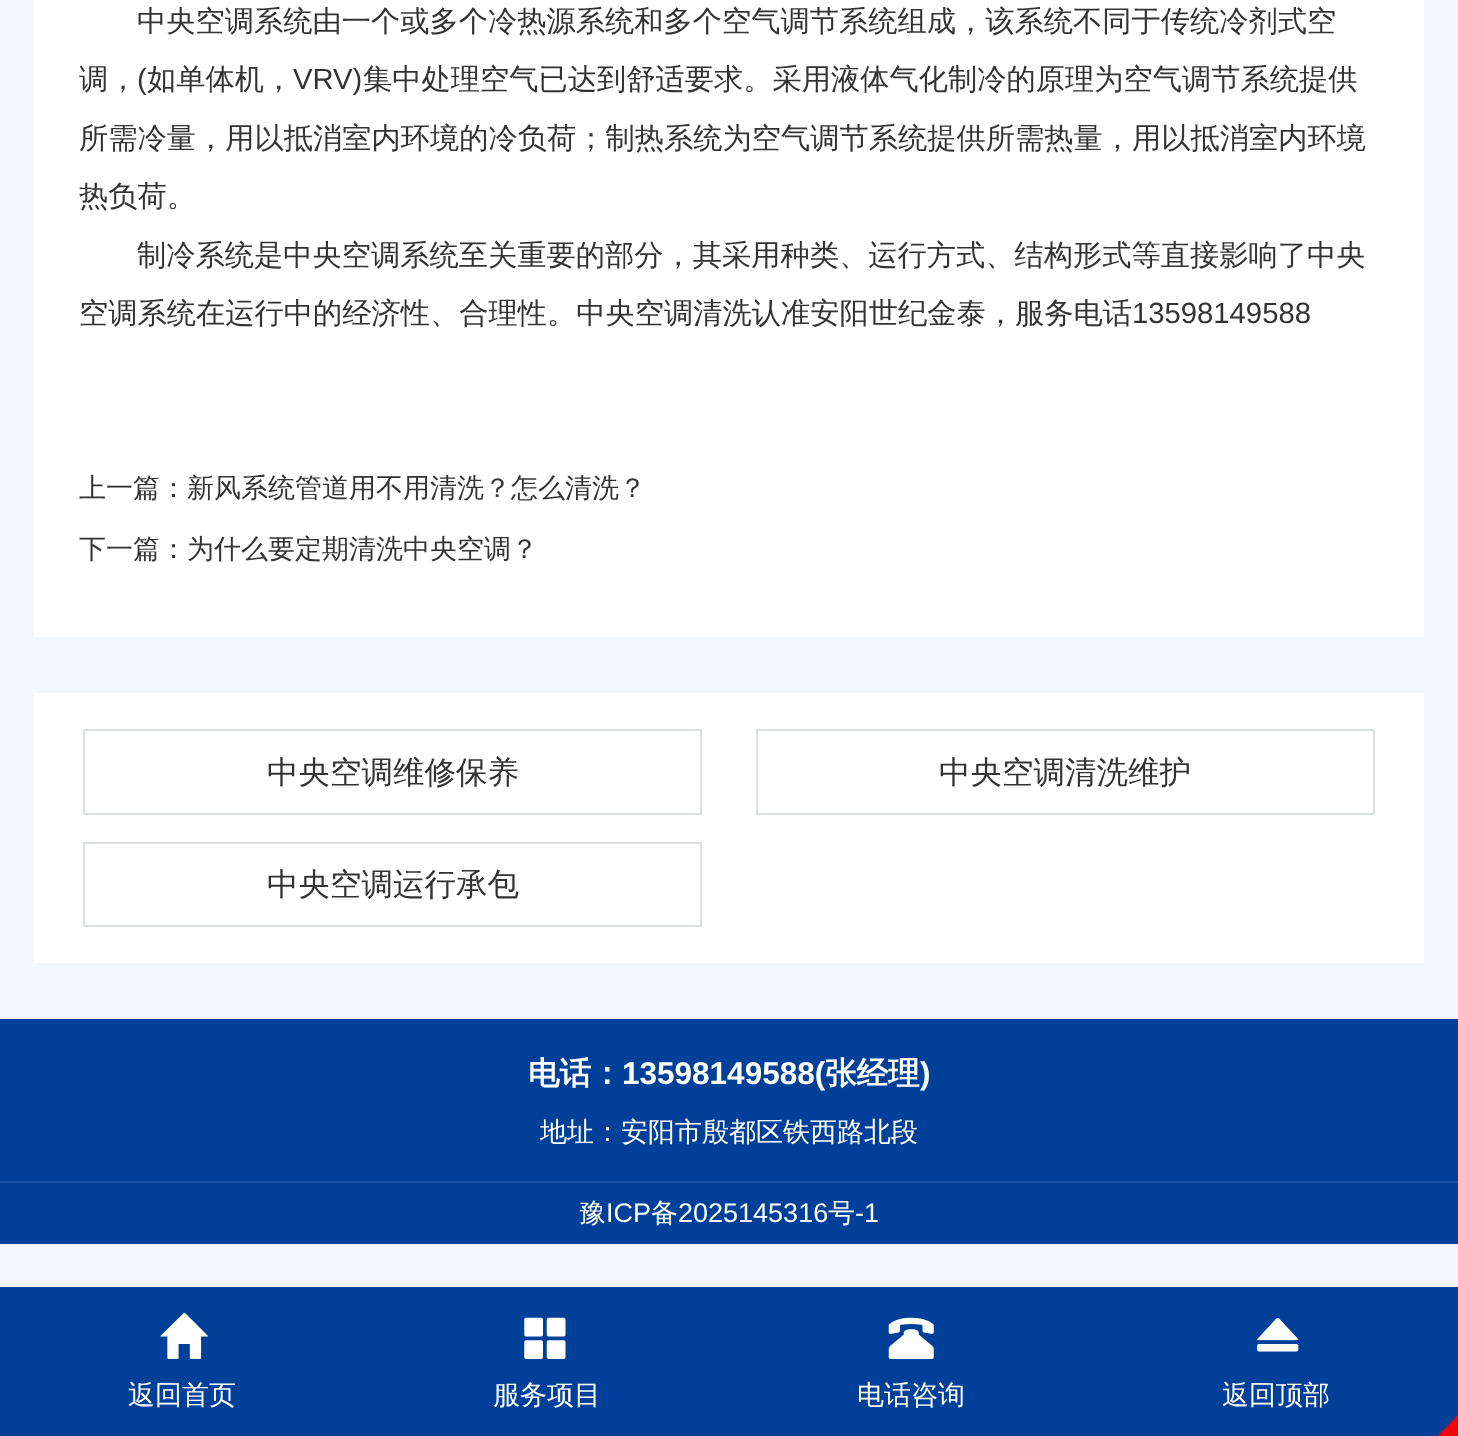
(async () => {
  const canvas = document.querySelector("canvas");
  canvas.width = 1458;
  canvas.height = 1436;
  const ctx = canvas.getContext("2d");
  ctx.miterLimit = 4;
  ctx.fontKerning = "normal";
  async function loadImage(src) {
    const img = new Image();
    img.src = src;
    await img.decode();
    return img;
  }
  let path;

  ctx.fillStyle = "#f3f7fc";
  ctx.fillRect(0, 0, 1458, 1436);
  ctx.fillStyle = "#ffffff";
  ctx.fillRect(34, 0, 1390, 637);
  ctx.fillRect(34, 693, 1390, 270);
  ctx.strokeStyle = "#dadfe6";
  ctx.lineWidth = 2;
  ctx.strokeRect(84, 730, 617, 84);
  ctx.strokeRect(757, 730, 617, 84);
  ctx.strokeRect(84, 843, 617, 83);
  for (const [x, y, w, h, color] of [
    [0, 1019, 1458, 162, "#004098"],
    [0, 1183, 1458, 61, "#004098"],
    [0, 1181, 1458, 2, "#1a53a2"],
    [0, 1287, 1458, 149, "#004098"],
  ]) {
    ctx.fillStyle = color;
    ctx.fillRect(x, y, w, h);
  }
  ctx.drawImage(await loadImage("img/1.png"), 160, 1312, 49, 47);
  ctx.drawImage(await loadImage("img/2.png"), 524, 1317, 42, 42);
  ctx.drawImage(await loadImage("img/3.png"), 888, 1317, 46, 42);
  ctx.drawImage(await loadImage("img/4.png"), 1257, 1317, 42, 35);
  ctx.fillStyle = "#ff0000";
  path = new Path2D("M1458 1415V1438L1447 1426.5Z");
  ctx.fill(path);
  path = new Path2D("M1458 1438H1435.5L1447 1426.5Z");
  ctx.fill(path);
  ctx.font = "500 29.25px WenQuanYi Zen Hei";
  ctx.fillStyle = "#333333";
  ctx.fillText("中央空调系统由一个或多个冷热源系统和多个空气调节系统组成，该系统不同于传统冷剂式空", 137, 31);
  ctx.fillText("调，", 79, 89);
  ctx.font = "29.25px Liberation Sans";
  ctx.fillText("(", 137, 89);
  ctx.font = "500 29.25px WenQuanYi Zen Hei";
  ctx.fillText("如单体机，", 147, 89);
  ctx.font = "29.25px Liberation Sans";
  ctx.fillText("VRV)", 293, 89);
  ctx.font = "500 29.25px WenQuanYi Zen Hei";
  for (const [text, x, y] of [
    ["集中处理空气已达到舒适要求。采用液体气化制冷的原理为空气调节系统提供", 363, 89],
    ["所需冷量，用以抵消室内环境的冷负荷；制热系统为空气调节系统提供所需热量，用以抵消室内环境", 79, 148],
    ["热负荷。", 79, 206],
    ["制冷系统是中央空调系统至关重要的部分，其采用种类、运行方式、结构形式等直接影响了中央", 137, 265],
    ["空调系统在运行中的经济性、合理性。中央空调清洗认准安阳世纪金泰，服务电话", 79, 323],
  ]) {
    ctx.fillText(text, x, y);
  }
  ctx.font = "29.25px Liberation Sans";
  ctx.fillText("13598149588", 1132, 323);
  ctx.font = "500 27px WenQuanYi Zen Hei";
  ctx.fillText("上一篇：新风系统管道用不用清洗？怎么清洗？", 79, 497);
  ctx.fillText("下一篇：为什么要定期清洗中央空调？", 79, 558);
  ctx.font = "500 31.5px WenQuanYi Zen Hei";
  for (const [text, x, y] of [
    ["中央空调维修保养", 267, 783],
    ["中央空调清洗维护", 939, 783],
    ["中央空调运行承包", 267, 895],
  ]) {
    ctx.fillText(text, x, y);
  }
  ctx.font = "bold 31.5px WenQuanYi Zen Hei";
  ctx.fillStyle = "#ffffff";
  ctx.fillText("电话：", 528, 1084);
  ctx.font = "bold 31.5px Liberation Sans";
  ctx.fillText("13598149588(", 622, 1084);
  ctx.font = "bold 31.5px WenQuanYi Zen Hei";
  ctx.fillText("张经理", 825, 1084);
  ctx.font = "bold 31.5px Liberation Sans";
  ctx.fillText(")", 920, 1084);
  ctx.font = "500 27px WenQuanYi Zen Hei";
  ctx.fillText("地址：安阳市殷都区铁西路北段", 540, 1141);
  ctx.fillText("豫", 579, 1222);
  ctx.font = "27px Liberation Sans";
  ctx.fillText("ICP", 606, 1222);
  ctx.font = "500 27px WenQuanYi Zen Hei";
  ctx.fillText("备", 651, 1222);
  ctx.font = "27px Liberation Sans";
  ctx.fillText("2025145316", 678, 1222);
  ctx.font = "500 27px WenQuanYi Zen Hei";
  ctx.fillText("号", 828, 1222);
  ctx.font = "27px Liberation Sans";
  ctx.fillText("-1", 855, 1222);
  ctx.font = "500 27px WenQuanYi Zen Hei";
  for (const [text, x, y] of [
    ["返回首页", 128, 1404],
    ["服务项目", 493, 1404],
    ["电话咨询", 857, 1404],
    ["返回顶部", 1222, 1404],
  ]) {
    ctx.fillText(text, x, y);
  }
})();
